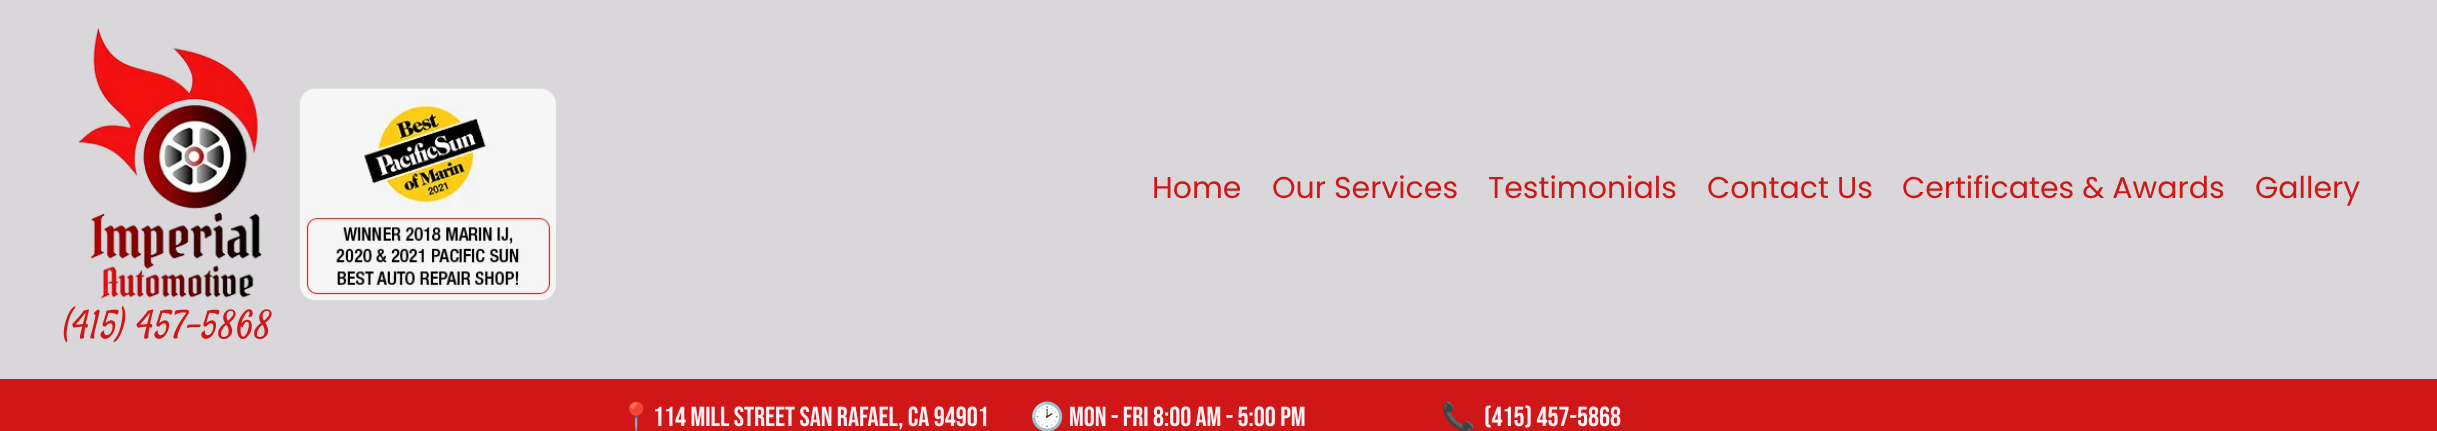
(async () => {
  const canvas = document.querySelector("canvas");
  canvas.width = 2437;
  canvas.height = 431;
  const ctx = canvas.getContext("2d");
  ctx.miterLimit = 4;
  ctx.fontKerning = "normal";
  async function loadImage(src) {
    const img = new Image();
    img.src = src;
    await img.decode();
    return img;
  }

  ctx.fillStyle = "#d9d7d9";
  ctx.fillRect(0, 0, 2437, 431);
  ctx.drawImage(await loadImage("img/1.png"), 78, 28, 478, 273);
  ctx.fillStyle = "#cf1717";
  ctx.fillRect(0, 379, 2437, 52);
  ctx.font = "30px Poppins";
  for (const [text, x, y] of [
    ["Home", 1152, 198],
    ["Our Services", 1272, 198],
    ["Testimonials", 1488, 198],
    ["Contact Us", 1707, 198],
    ["Certificates & Awards", 1902, 198],
    ["Gallery", 2255, 198],
  ]) {
    ctx.fillText(text, x, y);
  }
  ctx.font = "39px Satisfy";
  ctx.fillText("(415) 457-5868", 63, 338);
  ctx.font = "27.5px Noto Color Emoji";
  ctx.fillStyle = "#fff0f5";
  ctx.fillText("📍", 619, 426);
  ctx.font = "27.5px Bebas Neue";
  ctx.fillText("114 mill street San Rafael, CA 94901", 653, 426);
  ctx.font = "27.5px Noto Color Emoji";
  ctx.fillText("🕑", 1030, 426);
  ctx.font = "27.5px Bebas Neue";
  ctx.fillText("Mon - Fri 8:00 AM - 5:00 PM", 1069, 426);
  ctx.font = "27.5px Noto Color Emoji";
  ctx.fillText("📞", 1441, 426);
  ctx.font = "27.5px Bebas Neue";
  ctx.fillText("(415) 457-5868", 1484, 426);
})();
